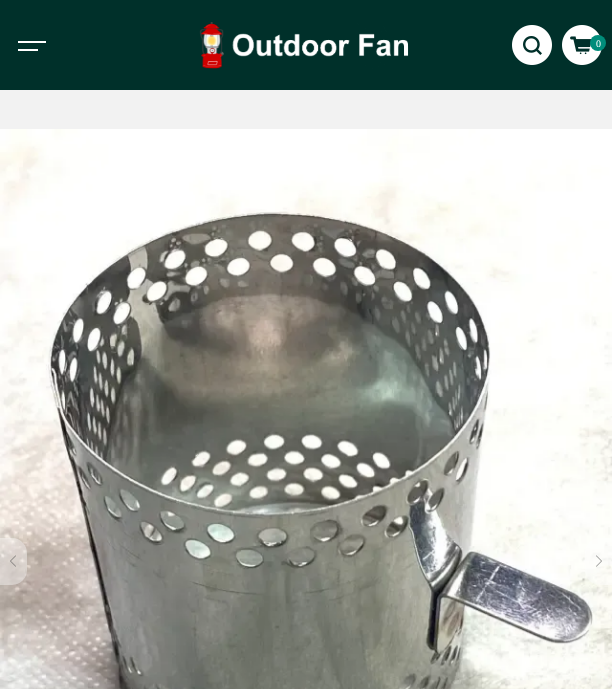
(async () => {
  const canvas = document.querySelector("canvas");
  canvas.width = 612;
  canvas.height = 689;
  const ctx = canvas.getContext("2d");
  ctx.miterLimit = 4;
  ctx.fontKerning = "normal";
  async function loadImage(src) {
    const img = new Image();
    img.src = src;
    await img.decode();
    return img;
  }
  let path;

  ctx.fillStyle = "#f2f2f2";
  ctx.fillRect(0, 0, 612, 689);
  ctx.fillStyle = "#00302a";
  ctx.fillRect(0, 0, 612, 90);
  ctx.fillStyle = "#ffffff";
  path = new Path2D("M18 51V49H38V51ZM18 43V41H46V43Z");
  ctx.fill(path);
  ctx.drawImage(await loadImage("img/1.png"), 199, 22, 210, 47);
  ctx.drawImage(await loadImage("img/2.png"), 512, 25, 40, 40);
  ctx.drawImage(await loadImage("img/3.png"), 562, 25, 40, 40);
  ctx.fillStyle = "#008d7b";
  ctx.beginPath();
  ctx.arc(598, 43, 8, 0, Math.PI * 2);
  ctx.fill();
  ctx.drawImage(await loadImage("img/4.png"), 0, 129, 612, 560);
  ctx.fillStyle = "rgba(255, 255, 255, 0.4)";
  ctx.beginPath();
  ctx.roundRect(0, 538, 27, 47, [0, 15, 15, 0]);
  ctx.fill();
  ctx.drawImage(await loadImage("img/5.png"), 10, 555, 6, 12);
  ctx.beginPath();
  ctx.roundRect(585, 538, 27, 47, [15, 0, 0, 15]);
  ctx.fill();
  ctx.drawImage(await loadImage("img/6.png"), 596, 555, 6, 12);
  ctx.font = "10px Liberation Serif";
  ctx.fillStyle = "#ffffff";
  ctx.fillText("0", 596, 47);
})();
